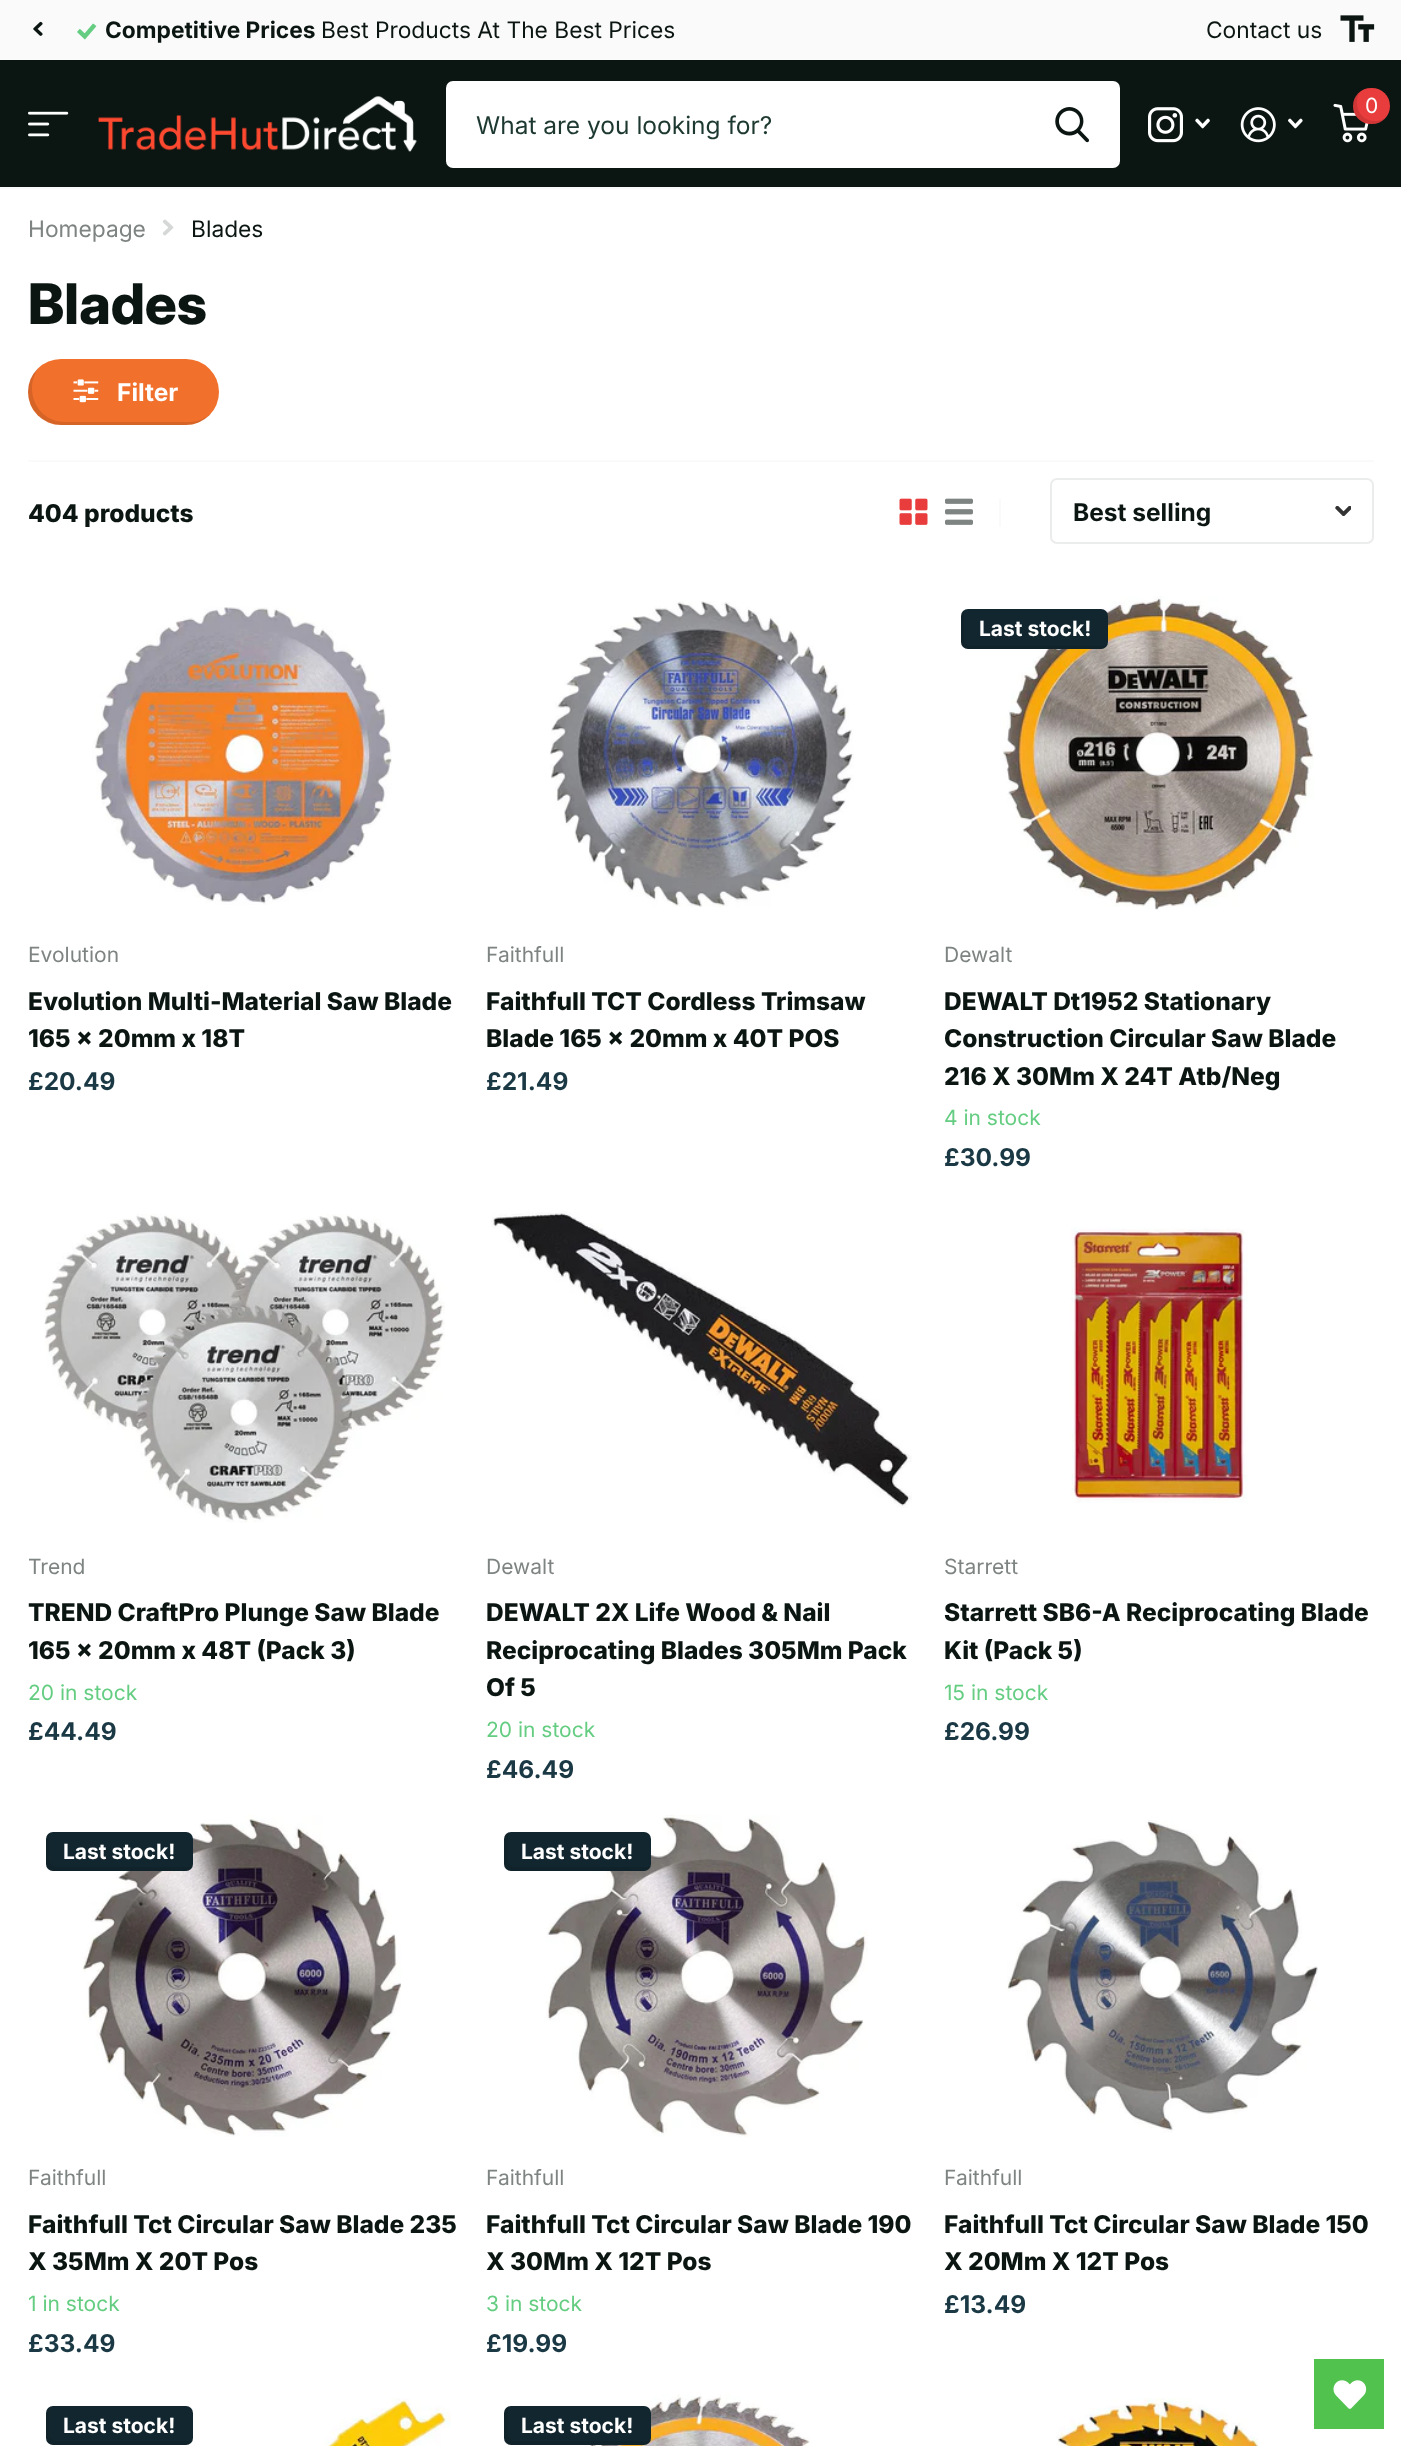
(async () => {
  const canvas = document.querySelector("canvas");
  canvas.width = 1401;
  canvas.height = 2446;
  const ctx = canvas.getContext("2d");
  ctx.miterLimit = 4;
  ctx.fontKerning = "normal";
  async function loadImage(src) {
    const img = new Image();
    img.src = src;
    await img.decode();
    return img;
  }
  let path;

  ctx.fillStyle = "#ffffff";
  ctx.fillRect(0, 0, 1401, 2446);
  ctx.fillStyle = "#fafafa";
  ctx.fillRect(0, 0, 1401, 60);
  ctx.drawImage(await loadImage("img/1.png"), 33, 21, 10, 15);
  ctx.drawImage(await loadImage("img/2.png"), 77, 23, 20, 17);
  ctx.drawImage(await loadImage("img/3.png"), 1340, 15, 35, 27);
  ctx.fillStyle = "#0b1613";
  ctx.fillRect(0, 60, 1401, 127);
  ctx.fillStyle = "#fafafa";
  ctx.fillRect(0, 187, 1401, 2);
  ctx.drawImage(await loadImage("img/4.png"), 98, 96, 319, 56);
  ctx.drawImage(await loadImage("img/5.png"), 1148, 107, 35, 36);
  ctx.drawImage(await loadImage("img/6.png"), 1195, 118, 15, 11);
  ctx.drawImage(await loadImage("img/7.png"), 1240, 107, 36, 36);
  ctx.drawImage(await loadImage("img/8.png"), 1288, 118, 15, 11);
  ctx.drawImage(await loadImage("img/9.png"), 1333, 103, 36, 40);
  ctx.fillStyle = "#e93d3d";
  ctx.beginPath();
  ctx.roundRect(1353, 88, 37, 36, 18);
  ctx.fill();
  ctx.fillStyle = "rgba(0, 0, 0, 0.1)";
  path = new Path2D("M1385.5 118C1382.5 120 1379 121 1375 121C1358 121 1353 102.5 1360 91.5C1351.5 98 1350.5 111 1358.5 118.5C1365.5 126 1378.5 125.5 1385.5 118Z");
  ctx.fill(path);
  ctx.drawImage(await loadImage("img/10.png"), 28, 111, 41, 26);
  ctx.fillStyle = "#ffffff";
  ctx.beginPath();
  ctx.roundRect(446, 81, 674, 87, 7);
  ctx.fill();
  ctx.drawImage(await loadImage("img/11.png"), 1055, 107, 34, 36);
  ctx.drawImage(await loadImage("img/12.png"), 162, 219, 12, 17);
  ctx.fillStyle = "#f0702c";
  ctx.beginPath();
  ctx.roundRect(28, 359, 191, 66, 33);
  ctx.fill();
  ctx.fillStyle = "rgba(0, 0, 0, 0.1)";
  path = new Path2D("M39 367C32 373 28 382 28 392C28 410 43 425 61 425H186C196 425 206 420 212 413C206 418 198 422 189 422H65C46 422 32 407 32 388C32 380 35 373 39 367Z");
  ctx.fill(path);
  ctx.drawImage(await loadImage("img/13.png"), 73, 379, 26, 24);
  ctx.fillStyle = "#fafafa";
  ctx.fillRect(28, 460, 1346, 2);
  ctx.drawImage(await loadImage("img/14.png"), 899, 498, 29, 27);
  ctx.drawImage(await loadImage("img/15.png"), 945, 498, 28, 27);
  ctx.fillRect(999, 499, 2, 28);
  ctx.drawImage(await loadImage("img/16.png"), 1335, 506, 16, 10);
  ctx.beginPath();
  ctx.roundRect(1051, 479, 322, 64, 6);
  ctx.strokeStyle = "#ebecec";
  ctx.lineWidth = 2;
  ctx.stroke();
  ctx.drawImage(await loadImage("img/17.png"), 92, 607, 300, 298);
  ctx.drawImage(await loadImage("img/18.png"), 550, 601, 304, 306);
  ctx.drawImage(await loadImage("img/19.png"), 1002, 596, 312, 314);
  ctx.fillStyle = "#12262f";
  ctx.beginPath();
  ctx.roundRect(961, 609, 147, 40, 7);
  ctx.fill();
  ctx.fillStyle = "rgba(0, 0, 0, 0.1)";
  path = new Path2D("M964 610C962 611 961 613 961 616V642C961 646 964 649 968 649H1101C1104 649 1106 647 1107 645L1104 646H971C967 646 964 643 964 639V612Z");
  ctx.fill(path);
  ctx.drawImage(await loadImage("img/20.png"), 44, 1214, 401, 309);
  ctx.drawImage(await loadImage("img/21.png"), 491, 1211, 421, 297);
  ctx.drawImage(await loadImage("img/22.png"), 1071, 1227, 177, 276);
  ctx.drawImage(await loadImage("img/23.png"), 82, 1815, 319, 322);
  ctx.fillStyle = "#12262f";
  ctx.beginPath();
  ctx.roundRect(46, 1832, 147, 39, 7);
  ctx.fill();
  ctx.fillStyle = "rgba(0, 0, 0, 0.1)";
  path = new Path2D("M50 1833C48 1834 46 1836 46 1839V1864C46 1868 49 1871 53 1871H186C189 1871 192 1869 193 1866C192 1867 190 1867 189 1867H56C52 1867 49 1864 49 1860V1836Z");
  ctx.fill(path);
  ctx.drawImage(await loadImage("img/24.png"), 546, 1815, 322, 322);
  ctx.fillStyle = "#12262f";
  ctx.beginPath();
  ctx.roundRect(504, 1832, 147, 39, 7);
  ctx.fill();
  ctx.fillStyle = "rgba(0, 0, 0, 0.1)";
  path = new Path2D("M509 1832C506 1833 504 1836 504 1839V1864C504 1868 507 1871 511 1871H644C647 1871 650 1869 651 1866L648 1867H514C511 1867 508 1864 508 1860V1836Z");
  ctx.fill(path);
  ctx.drawImage(await loadImage("img/25.png"), 1007, 1820, 311, 313);
  ctx.fillStyle = "#12262f";
  ctx.beginPath();
  ctx.roundRect(46, 2406, 147, 39, 7);
  ctx.fill();
  ctx.fillStyle = "rgba(0, 0, 0, 0.1)";
  path = new Path2D("M50 2407C48 2408 46 2410 46 2413V2438C46 2442 49 2445 53 2445H186C189 2445 192 2443 193 2440C192 2441 190 2441 189 2441H56C52 2441 49 2438 49 2434V2410Z");
  ctx.fill(path);
  ctx.drawImage(await loadImage("img/26.png"), 324, 2398, 127, 48);
  ctx.drawImage(await loadImage("img/27.png"), 590, 2394, 220, 52);
  ctx.fillStyle = "#12262f";
  ctx.beginPath();
  ctx.roundRect(504, 2406, 147, 39, 7);
  ctx.fill();
  ctx.fillStyle = "rgba(0, 0, 0, 0.1)";
  path = new Path2D("M509 2406C506 2407 504 2410 504 2413V2438C504 2442 507 2445 511 2445H644C647 2445 650 2443 651 2440L648 2441H514C511 2441 508 2438 508 2434V2410Z");
  ctx.fill(path);
  ctx.drawImage(await loadImage("img/28.png"), 1056, 2398, 203, 48);
  ctx.fillStyle = "#51c24e";
  ctx.fillRect(1314, 2359, 70, 70);
  ctx.drawImage(await loadImage("img/29.png"), 1333, 2380, 34, 29);
  ctx.font = "bold 22.75px Inter";
  ctx.fillStyle = "#0b1613";
  ctx.fillText("Competitive Prices", 105, 38);
  ctx.font = "22.75px Inter";
  ctx.fillText("Best Products At The Best Prices", 321, 38);
  ctx.fillText("Contact us", 1206, 38);
  ctx.font = "21px Inter";
  ctx.fillStyle = "#ffffff";
  ctx.fillText("0", 1365, 113);
  ctx.font = "24.5px Inter";
  ctx.fillStyle = "#1c3830";
  ctx.fillText("What are you looking for?", 476, 134);
  ctx.font = "22.75px Inter";
  ctx.fillStyle = "#7e8482";
  ctx.fillText("Homepage", 28, 237);
  ctx.fillStyle = "#0b1613";
  ctx.fillText("Blades", 191, 237);
  ctx.font = "800 56px Inter";
  ctx.fillText("Blades", 28, 324);
  ctx.font = "bold 24.5px Inter";
  ctx.fillStyle = "#ffffff";
  ctx.fillText("Filter", 117, 401);
  ctx.font = "800 24.5px 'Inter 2'";
  ctx.fillStyle = "#0b1613";
  ctx.fillText("404 products", 28, 522);
  ctx.font = "bold 24.5px Inter";
  ctx.fillText("Best selling", 1073, 521);
  ctx.font = "21px Inter";
  ctx.fillStyle = "#7e8482";
  ctx.fillText("Evolution", 28, 962);
  ctx.font = "800 24.5px 'Inter 2'";
  ctx.fillStyle = "#0b1613";
  ctx.fillText("Evolution Multi-Material Saw Blade", 28, 1010);
  ctx.fillText("165 x 20mm x 18T", 28, 1047);
  ctx.font = "bold 24.5px Inter";
  ctx.fillStyle = "#1a3945";
  ctx.fillText("£20.49", 28, 1090);
  ctx.font = "21px Inter";
  ctx.fillStyle = "#7e8482";
  ctx.fillText("Faithfull", 486, 962);
  ctx.font = "800 24.5px 'Inter 2'";
  ctx.fillStyle = "#0b1613";
  ctx.fillText("Faithfull TCT Cordless Trimsaw", 486, 1010);
  ctx.fillText("Blade 165 x 20mm x 40T POS", 486, 1047);
  ctx.font = "bold 24.5px Inter";
  ctx.fillStyle = "#1a3945";
  ctx.fillText("£21.49", 486, 1090);
  ctx.font = "bold 21px Inter";
  ctx.fillStyle = "#ffffff";
  ctx.fillText("Last stock!", 979, 636);
  ctx.font = "21px Inter";
  ctx.fillStyle = "#7e8482";
  ctx.fillText("Dewalt", 944, 962);
  ctx.font = "800 24.5px 'Inter 2'";
  ctx.fillStyle = "#0b1613";
  for (const [text, x, y] of [
    ["DEWALT Dt1952 Stationary", 944, 1010],
    ["Construction Circular Saw Blade", 944, 1047],
    ["216 X 30Mm X 24T Atb/Neg", 944, 1085],
  ]) {
    ctx.fillText(text, x, y);
  }
  ctx.font = "21px Inter";
  ctx.fillStyle = "#64cd82";
  ctx.fillText("4 in stock", 944, 1125);
  ctx.font = "bold 24.5px Inter";
  ctx.fillStyle = "#1a3945";
  ctx.fillText("£30.99", 944, 1166);
  ctx.font = "21px Inter";
  ctx.fillStyle = "#7e8482";
  ctx.fillText("Trend", 28, 1574);
  ctx.font = "800 24.5px 'Inter 2'";
  ctx.fillStyle = "#0b1613";
  ctx.fillText("TREND CraftPro Plunge Saw Blade", 28, 1621);
  ctx.fillText("165 x 20mm x 48T (Pack 3)", 28, 1659);
  ctx.font = "21px Inter";
  ctx.fillStyle = "#64cd82";
  ctx.fillText("20 in stock", 28, 1700);
  ctx.font = "bold 24.5px Inter";
  ctx.fillStyle = "#1a3945";
  ctx.fillText("£44.49", 28, 1740);
  ctx.font = "21px Inter";
  ctx.fillStyle = "#7e8482";
  ctx.fillText("Dewalt", 486, 1574);
  ctx.font = "800 24.5px 'Inter 2'";
  ctx.fillStyle = "#0b1613";
  for (const [text, x, y] of [
    ["DEWALT 2X Life Wood & Nail", 486, 1621],
    ["Reciprocating Blades 305Mm Pack", 486, 1659],
    ["Of 5", 486, 1696],
  ]) {
    ctx.fillText(text, x, y);
  }
  ctx.font = "21px Inter";
  ctx.fillStyle = "#64cd82";
  ctx.fillText("20 in stock", 486, 1737);
  ctx.font = "bold 24.5px Inter";
  ctx.fillStyle = "#1a3945";
  ctx.fillText("£46.49", 486, 1778);
  ctx.font = "21px Inter";
  ctx.fillStyle = "#7e8482";
  ctx.fillText("Starrett", 944, 1574);
  ctx.font = "800 24.5px 'Inter 2'";
  ctx.fillStyle = "#0b1613";
  ctx.fillText("Starrett SB6-A Reciprocating Blade", 944, 1621);
  ctx.fillText("Kit (Pack 5)", 944, 1659);
  ctx.font = "21px Inter";
  ctx.fillStyle = "#64cd82";
  ctx.fillText("15 in stock", 944, 1700);
  ctx.font = "bold 24.5px Inter";
  ctx.fillStyle = "#1a3945";
  ctx.fillText("£26.99", 944, 1740);
  ctx.font = "bold 21px Inter";
  ctx.fillStyle = "#ffffff";
  ctx.fillText("Last stock!", 63, 1859);
  ctx.font = "21px Inter";
  ctx.fillStyle = "#7e8482";
  ctx.fillText("Faithfull", 28, 2185);
  ctx.font = "800 24.5px 'Inter 2'";
  ctx.fillStyle = "#0b1613";
  ctx.fillText("Faithfull Tct Circular Saw Blade 235", 28, 2233);
  ctx.fillText("X 35Mm X 20T Pos", 28, 2270);
  ctx.font = "21px Inter";
  ctx.fillStyle = "#64cd82";
  ctx.fillText("1 in stock", 28, 2311);
  ctx.font = "bold 24.5px Inter";
  ctx.fillStyle = "#1a3945";
  ctx.fillText("£33.49", 28, 2352);
  ctx.font = "bold 21px Inter";
  ctx.fillStyle = "#ffffff";
  ctx.fillText("Last stock!", 521, 1859);
  ctx.font = "21px Inter";
  ctx.fillStyle = "#7e8482";
  ctx.fillText("Faithfull", 486, 2185);
  ctx.font = "800 24.5px 'Inter 2'";
  ctx.fillStyle = "#0b1613";
  ctx.fillText("Faithfull Tct Circular Saw Blade 190", 486, 2233);
  ctx.fillText("X 30Mm X 12T Pos", 486, 2270);
  ctx.font = "21px Inter";
  ctx.fillStyle = "#64cd82";
  ctx.fillText("3 in stock", 486, 2311);
  ctx.font = "bold 24.5px Inter";
  ctx.fillStyle = "#1a3945";
  ctx.fillText("£19.99", 486, 2352);
  ctx.font = "21px Inter";
  ctx.fillStyle = "#7e8482";
  ctx.fillText("Faithfull", 944, 2185);
  ctx.font = "800 24.5px 'Inter 2'";
  ctx.fillStyle = "#0b1613";
  ctx.fillText("Faithfull Tct Circular Saw Blade 150", 944, 2233);
  ctx.fillText("X 20Mm X 12T Pos", 944, 2270);
  ctx.font = "bold 24.5px Inter";
  ctx.fillStyle = "#1a3945";
  ctx.fillText("£13.49", 944, 2313);
  ctx.font = "bold 21px Inter";
  ctx.fillStyle = "#ffffff";
  ctx.fillText("Last stock!", 63, 2433);
  ctx.fillText("Last stock!", 521, 2433);
})();
